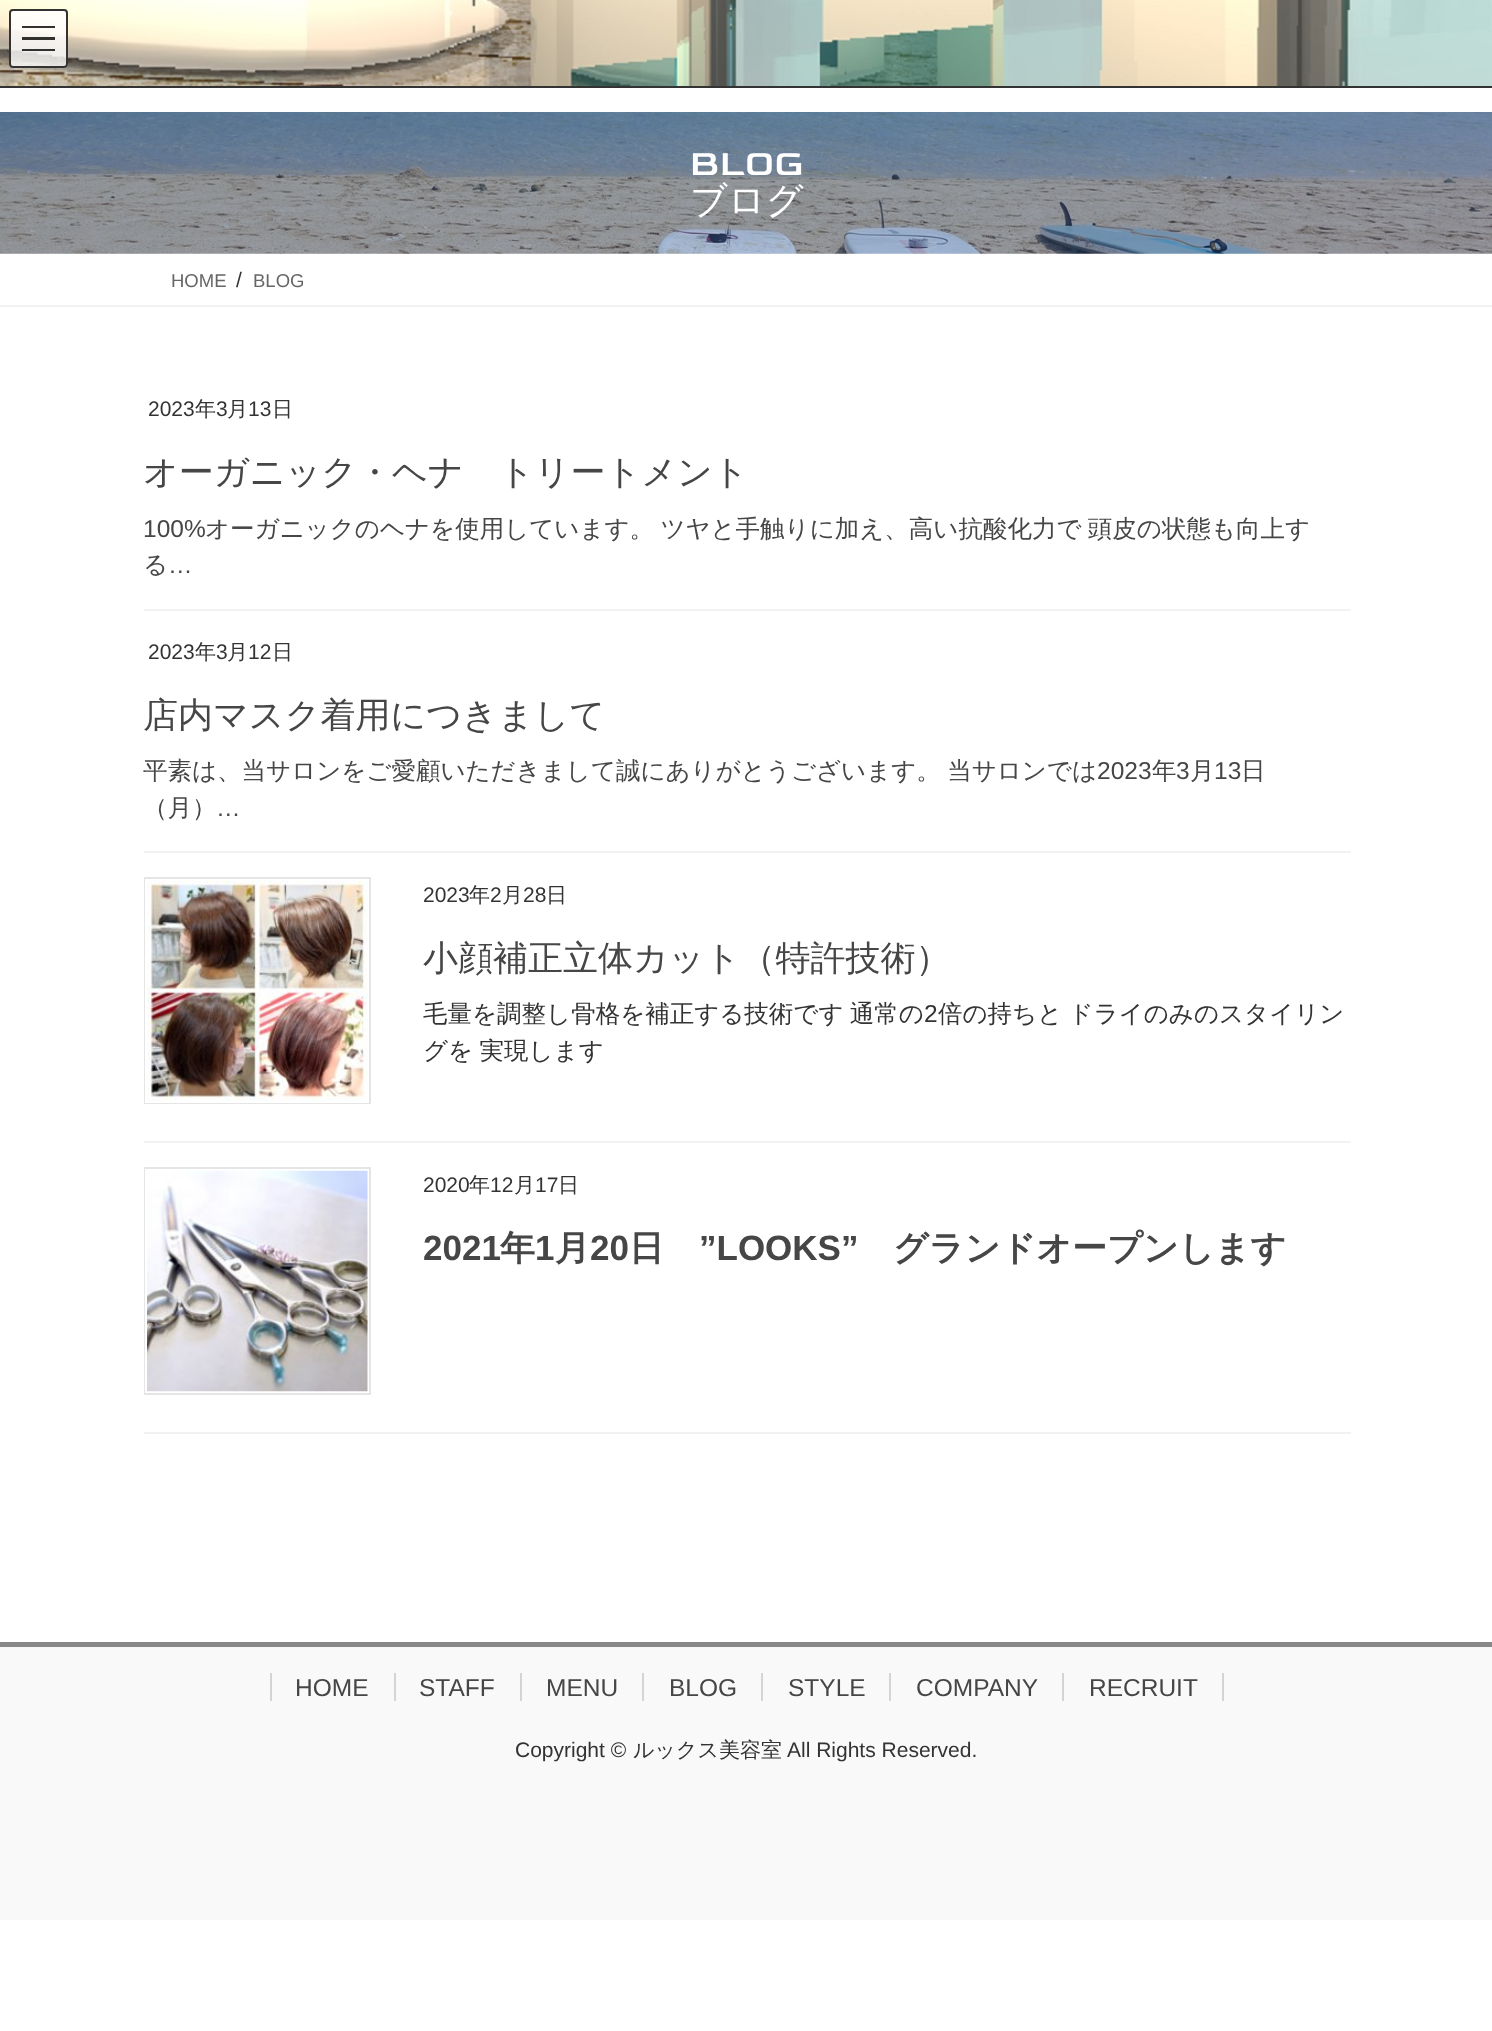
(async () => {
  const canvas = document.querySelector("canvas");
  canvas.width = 1492;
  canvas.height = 2031;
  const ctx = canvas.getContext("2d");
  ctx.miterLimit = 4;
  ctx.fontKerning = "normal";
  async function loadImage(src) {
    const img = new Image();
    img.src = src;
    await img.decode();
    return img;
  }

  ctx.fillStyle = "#ffffff";
  ctx.fillRect(0, 0, 1492, 2031);
  ctx.drawImage(await loadImage("img/1.png"), 0, 0, 1492, 86);
  ctx.fillStyle = "#333333";
  ctx.fillRect(0, 86, 1492, 2);
  ctx.fillStyle = "rgba(255, 255, 255, 0.8)";
  ctx.beginPath();
  ctx.roundRect(9, 9, 59, 59, 4);
  ctx.fill();
  for (const [x, y, w, h, color] of [
    [22, 26, 33, 2, "#333231"],
    [22, 37, 33, 3, "rgba(0, 0, 0, 0.8)"],
    [22, 49, 33, 2, "rgba(0, 0, 0, 0.8)"],
  ]) {
    ctx.fillStyle = color;
    ctx.fillRect(x, y, w, h);
  }
  ctx.beginPath();
  ctx.roundRect(10, 10, 57, 57, 3);
  ctx.strokeStyle = "#333333";
  ctx.lineWidth = 2;
  ctx.stroke();
  ctx.drawImage(await loadImage("img/2.png"), 0, 112, 1492, 142);
  for (const [x, y, w, h, color] of [
    [0, 305, 1492, 2, "#f2f2f2"],
    [144, 609, 1207, 2, "#f2f2f2"],
    [144, 851, 1207, 2, "#f2f2f2"],
    [144, 1141, 1207, 2, "#f2f2f2"],
  ]) {
    ctx.fillStyle = color;
    ctx.fillRect(x, y, w, h);
  }
  ctx.strokeStyle = "#e5e5e5";
  ctx.strokeRect(145, 878, 225, 225);
  ctx.strokeStyle = "#ffffff";
  ctx.strokeRect(146, 880, 222, 222);
  ctx.drawImage(await loadImage("img/3.png"), 147, 880, 221, 221);
  ctx.fillRect(144, 1432, 1207, 2);
  ctx.strokeStyle = "#e5e5e5";
  ctx.strokeRect(145, 1168, 225, 226);
  ctx.strokeStyle = "#ffffff";
  ctx.strokeRect(146, 1170, 222, 222);
  ctx.drawImage(await loadImage("img/4.png"), 147, 1170, 221, 222);
  for (const [x, y, w, h, color] of [
    [0, 1647, 1492, 273, "#f9f9f9"],
    [0, 1642, 1492, 5, "#888888"],
    [270, 1673, 2, 28, "#d4d4d4"],
    [394, 1673, 2, 28, "#d4d4d4"],
    [520, 1673, 2, 28, "#d4d4d4"],
    [642, 1673, 2, 28, "#d4d4d4"],
    [761, 1673, 2, 28, "#d4d4d4"],
    [889, 1673, 2, 28, "#d4d4d4"],
    [1222, 1673, 2, 28, "#d4d4d4"],
    [1062, 1673, 2, 28, "#d4d4d4"],
  ]) {
    ctx.fillStyle = color;
    ctx.fillRect(x, y, w, h);
  }
  ctx.font = "37px Goldman";
  ctx.fillStyle = "#ffffff";
  ctx.fillText("BLOG", 690, 175);
  ctx.font = "500 37px WenQuanYi Zen Hei";
  ctx.fillText("ブログ", 690, 213);
  ctx.font = "18.5px Liberation Sans";
  ctx.fillStyle = "#666666";
  ctx.fillText("HOME", 171, 287);
  ctx.font = "21px Liberation Sans";
  ctx.fillStyle = "#333333";
  ctx.fillText("/", 236, 287);
  ctx.font = "18.5px Liberation Sans";
  ctx.fillStyle = "#666666";
  ctx.fillText("BLOG", 253, 287);
  ctx.font = "21px Liberation Sans";
  ctx.fillStyle = "#333333";
  ctx.fillText("2023", 148, 416);
  ctx.font = "500 21px WenQuanYi Zen Hei";
  ctx.fillText("年", 195, 416);
  ctx.font = "21px Liberation Sans";
  ctx.fillText("3", 216, 416);
  ctx.font = "500 21px WenQuanYi Zen Hei";
  ctx.fillText("月", 227, 416);
  ctx.font = "21px Liberation Sans";
  ctx.fillText("13", 248, 416);
  ctx.font = "500 21px WenQuanYi Zen Hei";
  ctx.fillText("日", 272, 416);
  ctx.font = "500 35px WenQuanYi Zen Hei";
  ctx.fillStyle = "#464646";
  ctx.fillText("オーガニック・ヘナ　トリートメント", 143, 484);
  ctx.font = "24.5px Liberation Sans";
  ctx.fillText("100%", 143, 537);
  ctx.wordSpacing = "-1px";
  ctx.font = "500 24.5px WenQuanYi Zen Hei";
  ctx.fillText("オーガニックのヘナを使用しています。 ツヤと手触りに加え、高い抗酸化力で 頭皮の状態も向上す", 205, 537);
  ctx.wordSpacing = "0px";
  ctx.fillText("る", 143, 573);
  ctx.font = "24.5px Liberation Sans";
  ctx.fillText("…", 168, 573);
  ctx.font = "21px Liberation Sans";
  ctx.fillStyle = "#333333";
  ctx.fillText("2023", 148, 659);
  ctx.font = "500 21px WenQuanYi Zen Hei";
  ctx.fillText("年", 195, 659);
  ctx.font = "21px Liberation Sans";
  ctx.fillText("3", 216, 659);
  ctx.font = "500 21px WenQuanYi Zen Hei";
  ctx.fillText("月", 227, 659);
  ctx.font = "21px Liberation Sans";
  ctx.fillText("12", 248, 659);
  ctx.font = "500 21px WenQuanYi Zen Hei";
  ctx.fillText("日", 272, 659);
  ctx.font = "500 35px WenQuanYi Zen Hei";
  ctx.fillStyle = "#464646";
  ctx.fillText("店内マスク着用につきまして", 143, 727);
  ctx.wordSpacing = "-1px";
  ctx.font = "500 24.5px WenQuanYi Zen Hei";
  ctx.fillText("平素は、当サロンをご愛顧いただきまして誠にありがとうございます。 当サロンでは", 143, 779);
  ctx.wordSpacing = "0px";
  ctx.font = "24.5px Liberation Sans";
  ctx.fillText("2023", 1097, 779);
  ctx.font = "500 24.5px WenQuanYi Zen Hei";
  ctx.fillText("年", 1152, 779);
  ctx.font = "24.5px Liberation Sans";
  ctx.fillText("3", 1176, 779);
  ctx.font = "500 24.5px WenQuanYi Zen Hei";
  ctx.fillText("月", 1190, 779);
  ctx.font = "24.5px Liberation Sans";
  ctx.fillText("13", 1214, 779);
  ctx.font = "500 24.5px WenQuanYi Zen Hei";
  ctx.fillText("日", 1241, 779);
  ctx.fillText("（月）", 143, 816);
  ctx.font = "24.5px Liberation Sans";
  ctx.fillText("…", 216, 816);
  ctx.font = "21px Liberation Sans";
  ctx.fillStyle = "#333333";
  ctx.fillText("2023", 423, 902);
  ctx.font = "500 21px WenQuanYi Zen Hei";
  ctx.fillText("年", 469, 902);
  ctx.font = "21px Liberation Sans";
  ctx.fillText("2", 490, 902);
  ctx.font = "500 21px WenQuanYi Zen Hei";
  ctx.fillText("月", 502, 902);
  ctx.font = "21px Liberation Sans";
  ctx.fillText("28", 523, 902);
  ctx.font = "500 21px WenQuanYi Zen Hei";
  ctx.fillText("日", 546, 902);
  ctx.font = "500 35px WenQuanYi Zen Hei";
  ctx.fillStyle = "#464646";
  ctx.fillText("小顔補正立体カット（特許技術）", 423, 970);
  ctx.wordSpacing = "-1px";
  ctx.font = "500 24.5px WenQuanYi Zen Hei";
  ctx.fillStyle = "#333333";
  ctx.fillText("毛量を調整し骨格を補正する技術です 通常の", 423, 1022);
  ctx.wordSpacing = "0px";
  ctx.font = "24.5px Liberation Sans";
  ctx.fillText("2", 924, 1022);
  ctx.wordSpacing = "-1px";
  ctx.font = "500 24.5px WenQuanYi Zen Hei";
  ctx.fillText("倍の持ちと ドライのみのスタイリン", 938, 1022);
  ctx.fillText("グを 実現します", 423, 1059);
  ctx.wordSpacing = "0px";
  ctx.font = "21px Liberation Sans";
  ctx.fillText("2020", 423, 1192);
  ctx.font = "500 21px WenQuanYi Zen Hei";
  ctx.fillText("年", 469, 1192);
  ctx.font = "21px Liberation Sans";
  ctx.fillText("12", 490, 1192);
  ctx.font = "500 21px WenQuanYi Zen Hei";
  ctx.fillText("月", 514, 1192);
  ctx.font = "21px Liberation Sans";
  ctx.fillText("17", 535, 1192);
  ctx.font = "500 21px WenQuanYi Zen Hei";
  ctx.fillText("日", 558, 1192);
  ctx.font = "bold 35px Liberation Sans";
  ctx.fillStyle = "#464646";
  ctx.fillText("2021", 423, 1260);
  ctx.font = "bold 35px WenQuanYi Zen Hei";
  ctx.fillText("年", 500, 1260);
  ctx.font = "bold 35px Liberation Sans";
  ctx.fillText("1", 535, 1260);
  ctx.font = "bold 35px WenQuanYi Zen Hei";
  ctx.fillText("月", 555, 1260);
  ctx.font = "bold 35px Liberation Sans";
  ctx.fillText("20", 590, 1260);
  ctx.font = "bold 35px WenQuanYi Zen Hei";
  ctx.fillText("日", 629, 1260);
  ctx.font = "bold 35px Liberation Sans";
  ctx.fillText("”LOOKS”", 699, 1260);
  ctx.font = "bold 35px WenQuanYi Zen Hei";
  ctx.fillText("グランドオープンします", 893, 1260);
  ctx.font = "24.5px Liberation Sans";
  for (const [text, x, y] of [
    ["HOME", 295, 1696],
    ["STAFF", 419, 1696],
    ["MENU", 546, 1696],
    ["BLOG", 669, 1696],
    ["STYLE", 788, 1696],
    ["COMPANY", 916, 1696],
    ["RECRUIT", 1089, 1696],
  ]) {
    ctx.fillText(text, x, y);
  }
  ctx.font = "21px Liberation Sans";
  ctx.fillStyle = "#333333";
  ctx.fillText("Copyright ©", 515, 1757);
  ctx.font = "500 21px WenQuanYi Zen Hei";
  ctx.fillText("ルックス美容室", 633, 1757);
  ctx.font = "21px Liberation Sans";
  ctx.fillText("All Rights Reserved.", 787, 1757);
})();
